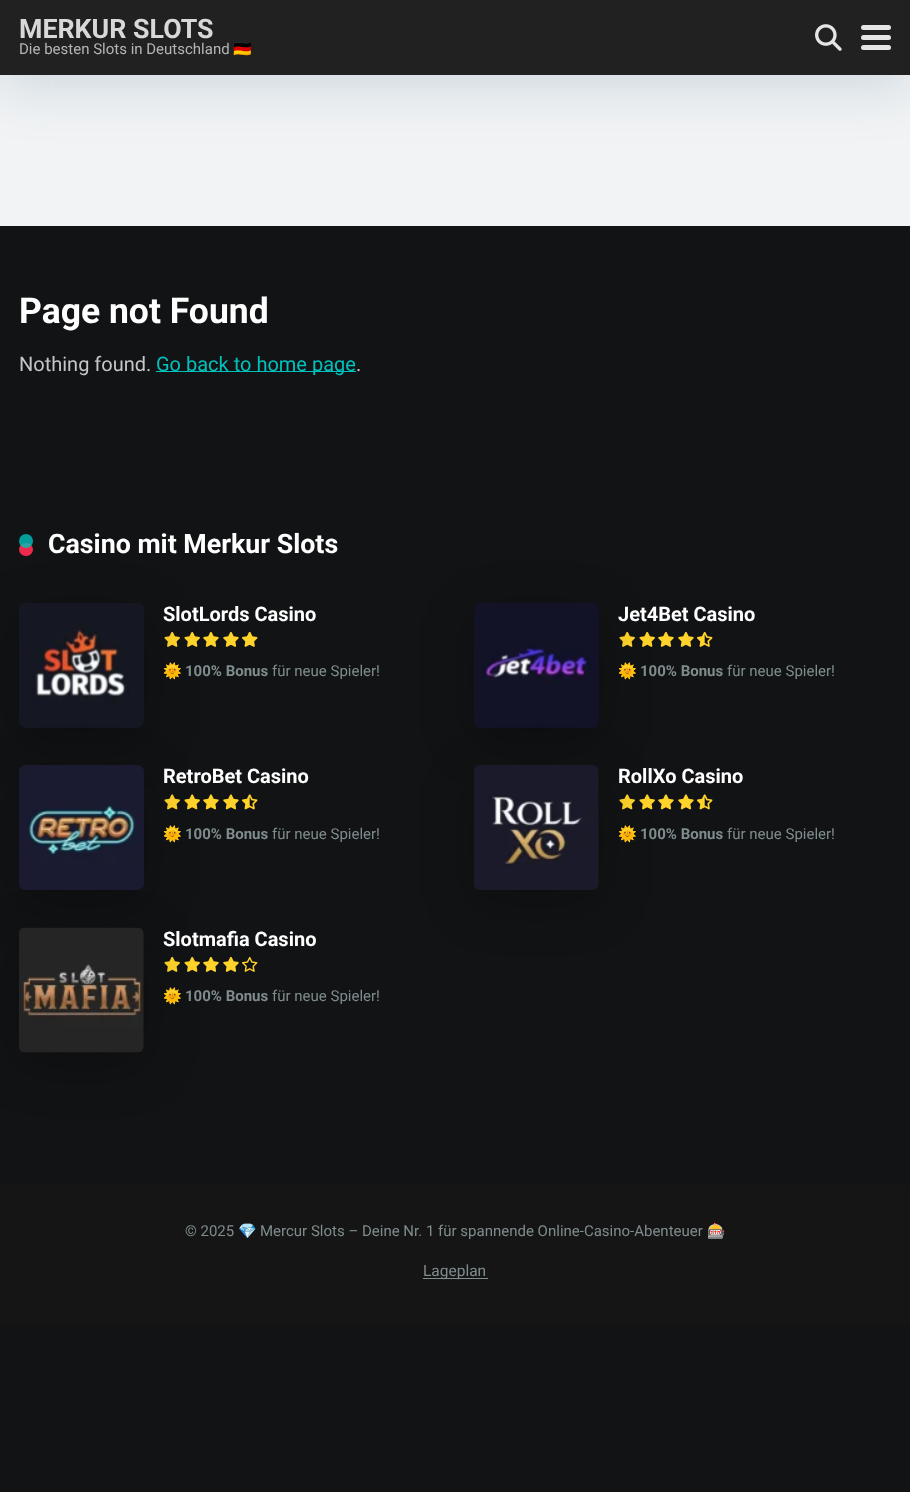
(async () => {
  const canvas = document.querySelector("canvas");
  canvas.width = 910;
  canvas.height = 1492;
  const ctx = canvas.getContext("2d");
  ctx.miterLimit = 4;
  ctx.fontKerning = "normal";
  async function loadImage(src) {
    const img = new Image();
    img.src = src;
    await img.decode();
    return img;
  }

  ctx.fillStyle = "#121315";
  ctx.fillRect(0, 0, 910, 1492);
  ctx.fillStyle = "#f1f3f4";
  ctx.fillRect(0, 75, 910, 151);
  ctx.fillStyle = "rgba(109, 141, 173, 0.25)";
  ctx.filter = "blur(25px)";
  ctx.beginPath();
  ctx.rect(0, 13, 910, 75);
  ctx.fill();
  ctx.filter = "none";
  ctx.fillStyle = "#212121";
  ctx.fillRect(0, 0, 910, 75);
  ctx.drawImage(await loadImage("img/1.png"), 815, 24, 27, 27);
  ctx.fillStyle = "#e5e5e5";
  ctx.beginPath();
  ctx.roundRect(861, 25, 30, 5, 2.5);
  ctx.fill();
  ctx.beginPath();
  ctx.roundRect(861, 35, 30, 5, 2.5);
  ctx.fill();
  ctx.beginPath();
  ctx.roundRect(861, 45, 30, 5, 2.5);
  ctx.fill();
  ctx.fillStyle = "#00c1bb";
  ctx.fillRect(156, 371, 200, 1);
  ctx.fillStyle = "#ed2a4b";
  ctx.beginPath();
  ctx.roundRect(19, 543, 14, 13, 6.5);
  ctx.fill();
  ctx.fillStyle = "rgba(0, 193, 187, 0.8)";
  ctx.beginPath();
  ctx.arc(26, 541, 7, 0, Math.PI * 2);
  ctx.fill();
  ctx.drawImage(await loadImage("img/3.png"), 164, 631, 16, 16);
  ctx.drawImage(await loadImage("img/3.png"), 184, 631, 16, 16);
  ctx.drawImage(await loadImage("img/4.png"), 203, 631, 16, 16);
  ctx.drawImage(await loadImage("img/9.png"), 164, 794, 16, 16);
  ctx.drawImage(await loadImage("img/9.png"), 184, 794, 16, 16);
  ctx.drawImage(await loadImage("img/10.png"), 203, 794, 16, 16);
  ctx.fillStyle = "rgba(0, 0, 0, 0.25)";
  ctx.filter = "blur(25px)";
  ctx.beginPath();
  ctx.roundRect(19, 615, 125, 125, 6);
  ctx.fill();
  ctx.filter = "none";
  ctx.drawImage(await loadImage("img/2.png"), 19, 603, 125, 125);
  ctx.drawImage(await loadImage("img/4.png"), 223, 631, 16, 16);
  ctx.drawImage(await loadImage("img/5.png"), 242, 631, 16, 16);
  ctx.drawImage(await loadImage("img/3.png"), 619, 631, 16, 16);
  ctx.drawImage(await loadImage("img/3.png"), 639, 631, 16, 16);
  ctx.drawImage(await loadImage("img/4.png"), 658, 631, 16, 16);
  ctx.drawImage(await loadImage("img/9.png"), 619, 794, 16, 16);
  ctx.drawImage(await loadImage("img/9.png"), 639, 794, 16, 16);
  ctx.drawImage(await loadImage("img/10.png"), 658, 794, 16, 16);
  ctx.filter = "blur(25px)";
  ctx.beginPath();
  ctx.roundRect(474, 615, 125, 125, 6);
  ctx.fill();
  ctx.filter = "none";
  ctx.drawImage(await loadImage("img/6.png"), 474, 603, 125, 125);
  ctx.drawImage(await loadImage("img/4.png"), 678, 631, 16, 16);
  ctx.drawImage(await loadImage("img/7.png"), 697, 631, 16, 16);
  ctx.drawImage(await loadImage("img/3.png"), 164, 956, 16, 16);
  ctx.drawImage(await loadImage("img/3.png"), 184, 956, 16, 16);
  ctx.drawImage(await loadImage("img/4.png"), 203, 956, 16, 16);
  ctx.filter = "blur(25px)";
  ctx.beginPath();
  ctx.roundRect(19, 778, 125, 125, 6);
  ctx.fill();
  ctx.filter = "none";
  ctx.drawImage(await loadImage("img/8.png"), 19, 765, 125, 125);
  ctx.drawImage(await loadImage("img/10.png"), 223, 794, 16, 16);
  ctx.drawImage(await loadImage("img/11.png"), 242, 794, 16, 16);
  ctx.filter = "blur(25px)";
  ctx.beginPath();
  ctx.roundRect(474, 778, 125, 125, 6);
  ctx.fill();
  ctx.filter = "none";
  ctx.drawImage(await loadImage("img/12.png"), 474, 765, 125, 125);
  ctx.drawImage(await loadImage("img/10.png"), 678, 794, 16, 16);
  ctx.drawImage(await loadImage("img/11.png"), 697, 794, 16, 16);
  ctx.filter = "blur(25px)";
  ctx.beginPath();
  ctx.roundRect(19, 940, 125, 125, 6);
  ctx.fill();
  ctx.filter = "none";
  ctx.drawImage(await loadImage("img/13.png"), 19, 927, 125, 126);
  ctx.drawImage(await loadImage("img/4.png"), 223, 956, 16, 16);
  ctx.drawImage(await loadImage("img/14.png"), 242, 956, 16, 16);
  ctx.fillStyle = "#151515";
  ctx.fillRect(0, 1185, 910, 139);
  ctx.fillStyle = "#7f8c8d";
  ctx.fillRect(423, 1278, 65, 1);
  ctx.font = "bold 26.75px Roboto";
  ctx.fillStyle = "#d8d8d8";
  ctx.fillText("MERKUR SLOTS", 19, 38);
  ctx.font = "15px Roboto";
  ctx.fillStyle = "#b5b5b5";
  ctx.fillText("Die besten Slots in Deutschland", 19, 54);
  ctx.font = "15px Noto Color Emoji";
  ctx.fillText("🇩🇪", 233, 54);
  ctx.font = "bold 35.5px Roboto";
  ctx.fillStyle = "#ffffff";
  ctx.fillText("Page not Found", 19, 323);
  ctx.font = "20px Roboto";
  ctx.fillStyle = "#c3c7c8";
  ctx.fillText("Nothing found.", 19, 371);
  ctx.fillStyle = "#00c1bb";
  ctx.fillText("Go back to home page", 156, 371);
  ctx.fillStyle = "#c3c7c8";
  ctx.fillText(".", 356, 371);
  ctx.font = "bold 26.75px Roboto";
  ctx.fillStyle = "#ffffff";
  ctx.fillText("Casino mit Merkur Slots", 48, 553);
  ctx.font = "bold 20px Roboto";
  ctx.fillText("SlotLords Casino", 163, 621);
  ctx.font = "15px Noto Color Emoji";
  ctx.fillStyle = "#7f8c8d";
  ctx.fillText("🌞", 163, 676);
  ctx.font = "bold 15px Roboto";
  ctx.fillText("100% Bonus", 185, 676);
  ctx.font = "15px Roboto";
  ctx.fillText("für neue Spieler!", 272, 676);
  ctx.font = "bold 20px Roboto";
  ctx.fillStyle = "#ffffff";
  ctx.fillText("Jet4Bet Casino", 618, 621);
  ctx.font = "15px Noto Color Emoji";
  ctx.fillStyle = "#7f8c8d";
  ctx.fillText("🌞", 618, 676);
  ctx.font = "bold 15px Roboto";
  ctx.fillText("100% Bonus", 640, 676);
  ctx.font = "15px Roboto";
  ctx.fillText("für neue Spieler!", 727, 676);
  ctx.font = "bold 20px Roboto";
  ctx.fillStyle = "#ffffff";
  ctx.fillText("RetroBet Casino", 163, 783);
  ctx.font = "15px Noto Color Emoji";
  ctx.fillStyle = "#7f8c8d";
  ctx.fillText("🌞", 163, 839);
  ctx.font = "bold 15px Roboto";
  ctx.fillText("100% Bonus", 185, 839);
  ctx.font = "15px Roboto";
  ctx.fillText("für neue Spieler!", 272, 839);
  ctx.font = "bold 20px Roboto";
  ctx.fillStyle = "#ffffff";
  ctx.fillText("RollXo Casino", 618, 783);
  ctx.font = "15px Noto Color Emoji";
  ctx.fillStyle = "#7f8c8d";
  ctx.fillText("🌞", 618, 839);
  ctx.font = "bold 15px Roboto";
  ctx.fillText("100% Bonus", 640, 839);
  ctx.font = "15px Roboto";
  ctx.fillText("für neue Spieler!", 727, 839);
  ctx.font = "bold 20px Roboto";
  ctx.fillStyle = "#ffffff";
  ctx.fillText("Slotmafia Casino", 163, 946);
  ctx.font = "15px Noto Color Emoji";
  ctx.fillStyle = "#7f8c8d";
  ctx.fillText("🌞", 163, 1001);
  ctx.font = "bold 15px Roboto";
  ctx.fillText("100% Bonus", 185, 1001);
  ctx.font = "15px Roboto";
  ctx.fillText("für neue Spieler!", 272, 1001);
  ctx.fillText("© 2025", 185, 1236);
  ctx.font = "15px Noto Color Emoji";
  ctx.fillText("💎", 238, 1236);
  ctx.font = "15px Roboto";
  ctx.fillText("Mercur Slots – Deine Nr. 1 für spannende Online-Casino-Abenteuer", 260, 1236);
  ctx.font = "15px Noto Color Emoji";
  ctx.fillText("🎰", 707, 1236);
  ctx.font = "15.5px Roboto";
  ctx.fillText("Lageplan", 423, 1276);
})();
